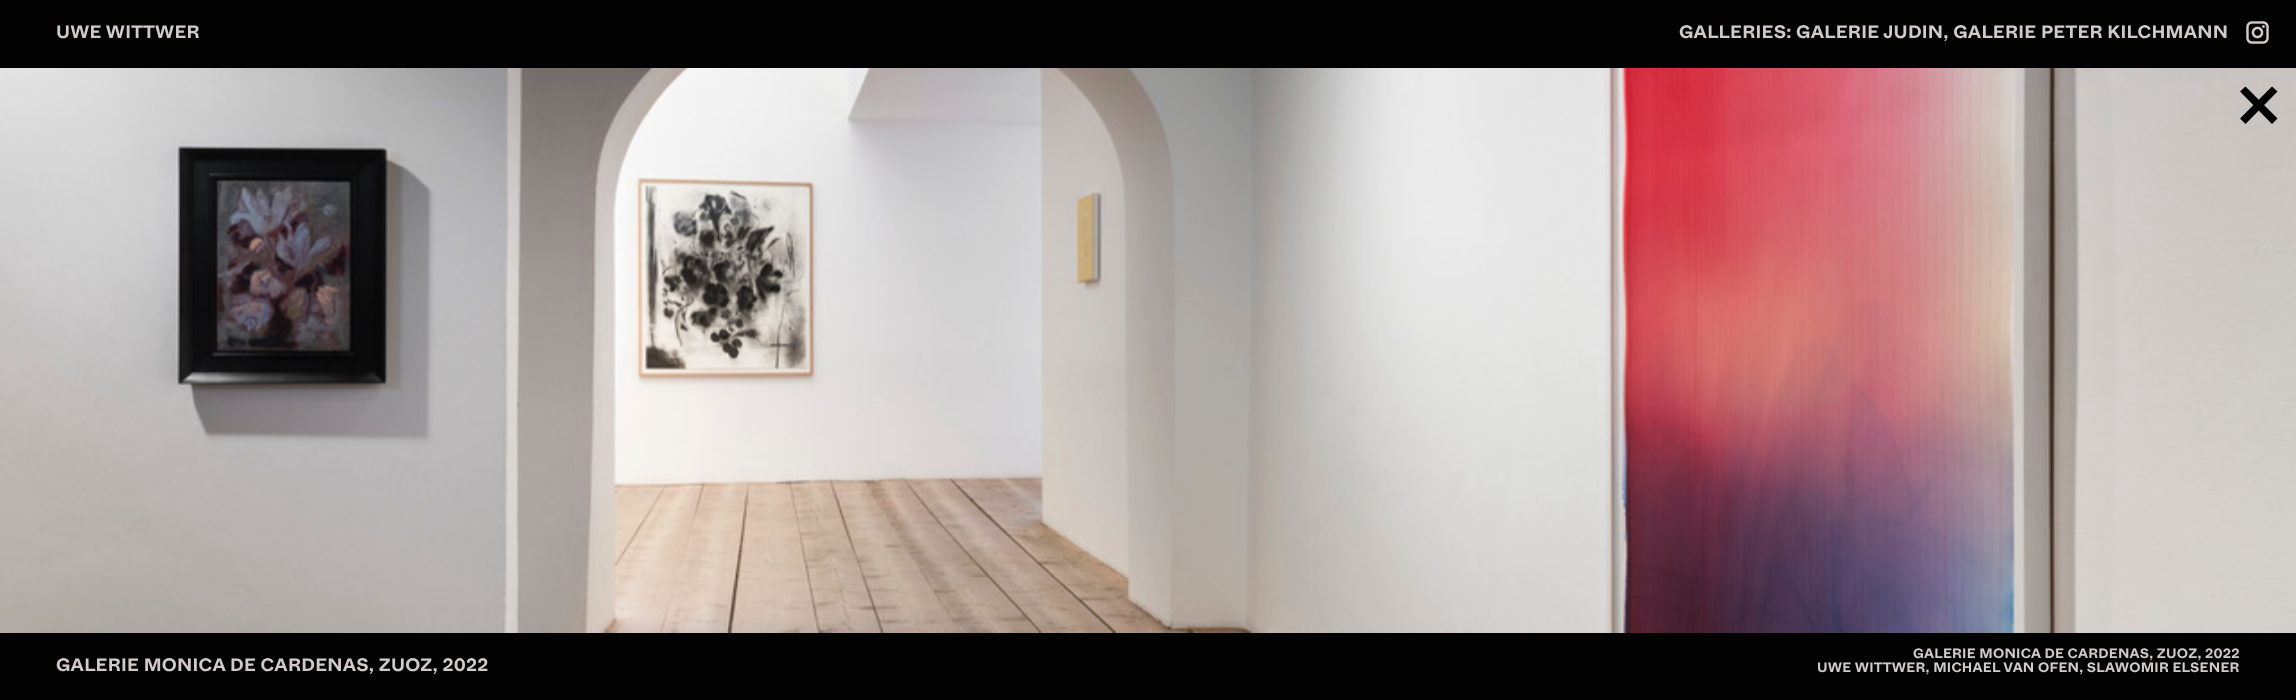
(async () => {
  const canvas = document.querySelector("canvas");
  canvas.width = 2296;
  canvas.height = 700;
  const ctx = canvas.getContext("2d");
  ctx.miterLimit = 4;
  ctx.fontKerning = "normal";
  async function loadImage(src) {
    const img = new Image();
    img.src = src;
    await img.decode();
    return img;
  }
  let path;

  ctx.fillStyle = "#020203";
  ctx.fillRect(0, 0, 2296, 700);
  ctx.drawImage(await loadImage("img/1.png"), 2246, 21, 23, 23);
  ctx.drawImage(await loadImage("img/2.png"), 0, 68, 2296, 565);
  path = new Path2D("M2240 118.5L2272 86.5L2277.5 91.5L2245.5 124Z");
  ctx.fill(path);
  path = new Path2D("M2240 91.5L2245.5 86.5L2277.5 118.5L2272 124Z");
  ctx.fill(path);
  ctx.letterSpacing = "0.25px";
  ctx.font = "bold 18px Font";
  ctx.fillStyle = "#d0cac8";
  for (const [text, x, y] of [
    ["UWE WITTWER", 56, 38],
    ["GALLERIES: GALERIE JUDIN, GALERIE PETER KILCHMANN", 1679, 38],
    ["GALERIE MONICA DE CARDENAS, ZUOZ, 2022", 56, 671],
  ]) {
    ctx.fillText(text, x, y);
  }
  ctx.font = "bold 13.5px Font";
  ctx.fillText("GALERIE MONICA DE CARDENAS, ZUOZ, 2022", 1913, 658);
  ctx.fillText("UWE WITTWER, MICHAEL VAN OFEN, SLAWOMIR ELSENER", 1817, 672);
})();
